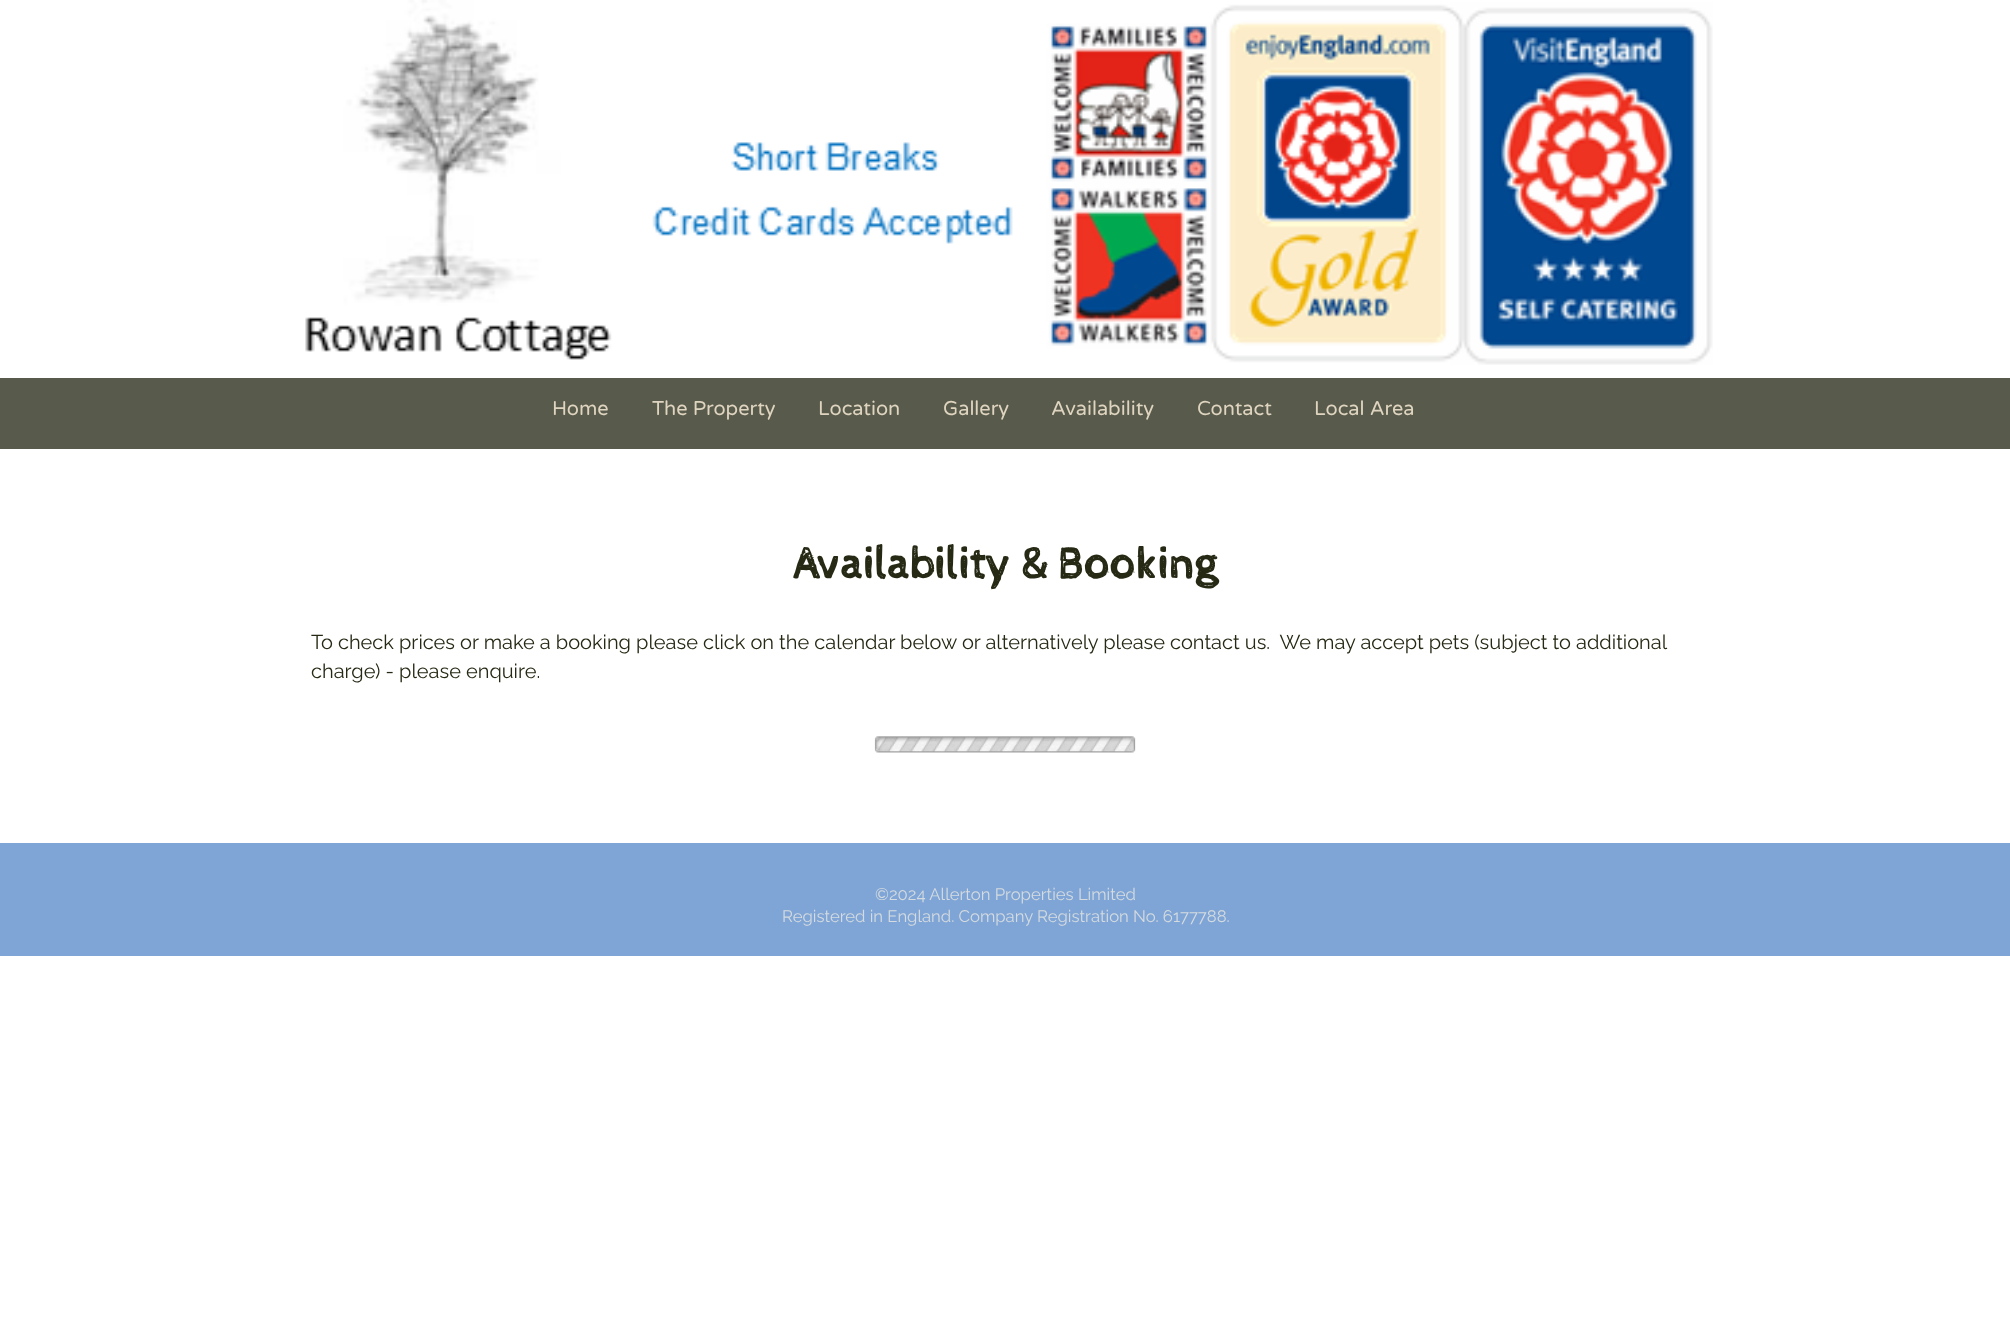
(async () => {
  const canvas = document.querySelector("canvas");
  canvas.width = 2010;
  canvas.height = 1326;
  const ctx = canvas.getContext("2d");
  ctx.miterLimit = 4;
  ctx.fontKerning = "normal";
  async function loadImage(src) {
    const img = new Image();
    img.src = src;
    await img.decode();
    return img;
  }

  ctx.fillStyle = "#ffffff";
  ctx.fillRect(0, 0, 2010, 1326);
  ctx.drawImage(await loadImage("img/1.png"), 305, 0, 1408, 365);
  ctx.fillStyle = "#585a4b";
  ctx.fillRect(0, 378, 2010, 71);
  ctx.drawImage(await loadImage("img/2.png"), 874, 736, 262, 17);
  ctx.fillStyle = "#7fa5d7";
  ctx.fillRect(0, 843, 2010, 113);
  ctx.font = "20px Varela Round";
  ctx.fillStyle = "#ded4bf";
  for (const [text, x, y] of [
    ["Home", 552, 415],
    ["The Property", 652, 415],
    ["Location", 818, 415],
    ["Gallery", 943, 415],
    ["Availability", 1051, 415],
    ["Contact", 1197, 415],
    ["Local Area", 1314, 415],
  ]) {
    ctx.fillText(text, x, y);
  }
  ctx.font = "bold 45px Cabin Sketch";
  ctx.fillStyle = "#262914";
  ctx.fillText("Availability & Booking", 793, 578);
  ctx.font = "100 20px Raleway";
  ctx.fillText("To check prices or make a booking please click on the calendar below or alternatively please contact us.  We may accept pets (subject to additional", 311, 649);
  ctx.fillText("charge) - please enquire.", 311, 678);
  ctx.font = "100 16.7px Raleway";
  ctx.fillStyle = "#d5dbde";
  ctx.fillText("©2024 Allerton Properties Limited", 875, 900);
  ctx.fillText("Registered in England. Company Registration No. 6177788.", 782, 922);
})();
